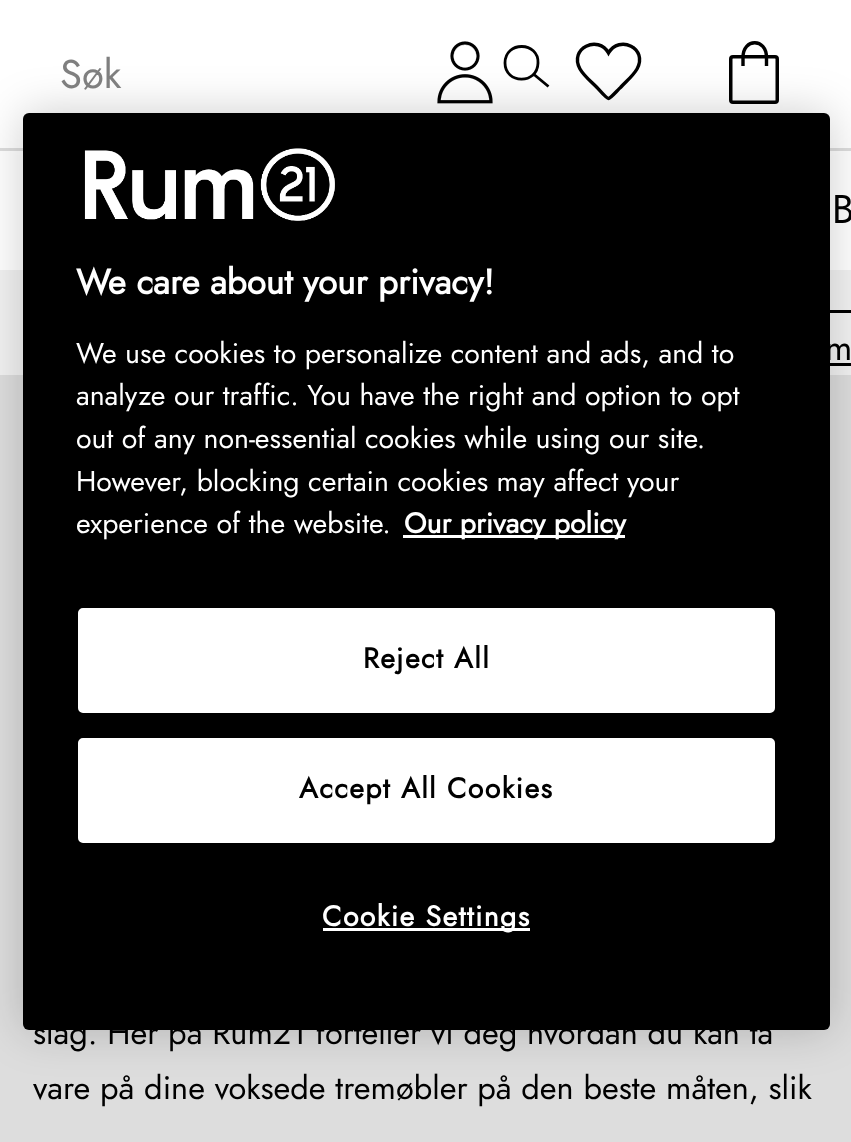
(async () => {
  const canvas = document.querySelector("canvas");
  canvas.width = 851;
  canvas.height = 1142;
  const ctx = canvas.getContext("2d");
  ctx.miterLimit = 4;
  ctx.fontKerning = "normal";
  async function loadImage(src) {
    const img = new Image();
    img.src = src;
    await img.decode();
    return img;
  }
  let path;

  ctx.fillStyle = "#ffffff";
  ctx.fillRect(0, 0, 851, 1142);
  ctx.fillStyle = "#dddddd";
  ctx.fillRect(0, 148, 851, 3);
  path = new Path2D("M505 63C505 40.5 539 41.5 538 63C537.5 85 505 84 505 63ZM534 74.5L548.5 86.5Z");
  ctx.strokeStyle = "#000000";
  ctx.lineWidth = 2.8;
  ctx.stroke(path);
  ctx.drawImage(await loadImage("img/1.png"), 437, 41, 56, 63);
  path = new Path2D("M608.5 98.5C610.5 98.5 618.5 89 620.5 87.5C626 81.5 633 76 637 69C648.5 48 619 34.5 608.5 53C598.5 34.5 568.5 48 580 69C584 76 591 81.5 597 87.5C598.5 89 606.5 98.5 608.5 98.5Z");
  ctx.lineWidth = 3.4;
  ctx.stroke(path);
  path = new Path2D("M743 66V57.5C743 37.5 766.5 38 766.5 57.5V66");
  ctx.stroke(path);
  ctx.beginPath();
  ctx.roundRect(730.75, 56.75, 46.5, 45.5, 2.25);
  ctx.lineWidth = 3.5;
  ctx.stroke();
  for (const [x, y, w, h, color] of [
    [0, 270, 851, 105, "#f2f2f2"],
    [825, 310, 26, 3, "#000000"],
    [825, 363, 26, 3, "#000000"],
    [850, 375, 1, 767, "#dddddd"],
    [0, 375, 850, 767, "#dddddd"],
  ]) {
    ctx.fillStyle = color;
    ctx.fillRect(x, y, w, h);
  }
  ctx.fillStyle = "rgba(0, 0, 0, 0.2)";
  ctx.filter = "blur(22.5px)";
  ctx.beginPath();
  ctx.roundRect(23, 113, 807, 917, 6);
  ctx.fill();
  ctx.filter = "none";
  ctx.fillStyle = "#000000";
  ctx.beginPath();
  ctx.roundRect(23, 113, 807, 917, 6);
  ctx.fill();
  ctx.drawImage(await loadImage("img/2.png"), 84, 148, 251, 73);
  ctx.fillStyle = "#ffffff";
  ctx.fillRect(403, 535, 222, 3);
  ctx.beginPath();
  ctx.roundRect(79.5, 609.5, 694, 102, 3.5);
  ctx.fill();
  ctx.strokeStyle = "#ffffff";
  ctx.lineWidth = 3;
  ctx.stroke();
  ctx.beginPath();
  ctx.roundRect(79.5, 739.5, 694, 102, 3.5);
  ctx.fill();
  ctx.stroke();
  ctx.fillRect(323, 928, 207, 3);
  ctx.font = "40px Jost";
  ctx.fillStyle = "#7f7f7f";
  ctx.fillText("Søk", 60, 88);
  ctx.fillStyle = "#000000";
  ctx.fillText("B", 832, 223);
  ctx.font = "35px Jost";
  ctx.fillText("m", 825, 360);
  ctx.font = "32.5px Jost";
  ctx.fillText("slag. Her på Rum21 forteller vi deg hvordan du kan ta", 33, 1044);
  ctx.fillText("vare på dine voksede tremøbler på den beste måten, slik", 33, 1099);
  ctx.font = "bold 35px Jost";
  ctx.fillStyle = "#ffffff";
  ctx.fillText("We care about your privacy!", 76, 294);
  ctx.font = "28.45px Jost";
  for (const [text, x, y] of [
    ["We use cookies to personalize content and ads, and to", 76, 363],
    ["analyze our traffic. You have the right and option to opt", 76, 405],
    ["out of any non-essential cookies while using our site.", 76, 448],
    ["However, blocking certain cookies may affect your", 76, 491],
    ["experience of the website.", 76, 533],
  ]) {
    ctx.fillText(text, x, y);
  }
  ctx.font = "bold 28.45px Jost";
  ctx.fillText("Our privacy policy", 404, 533);
  ctx.letterSpacing = "1.4px";
  ctx.fillStyle = "#000000";
  ctx.fillText("Reject All", 363, 668);
  ctx.fillText("Accept All Cookies", 299, 798);
  ctx.fillStyle = "#ffffff";
  ctx.fillText("Cookie Settings", 322, 926);
})();
